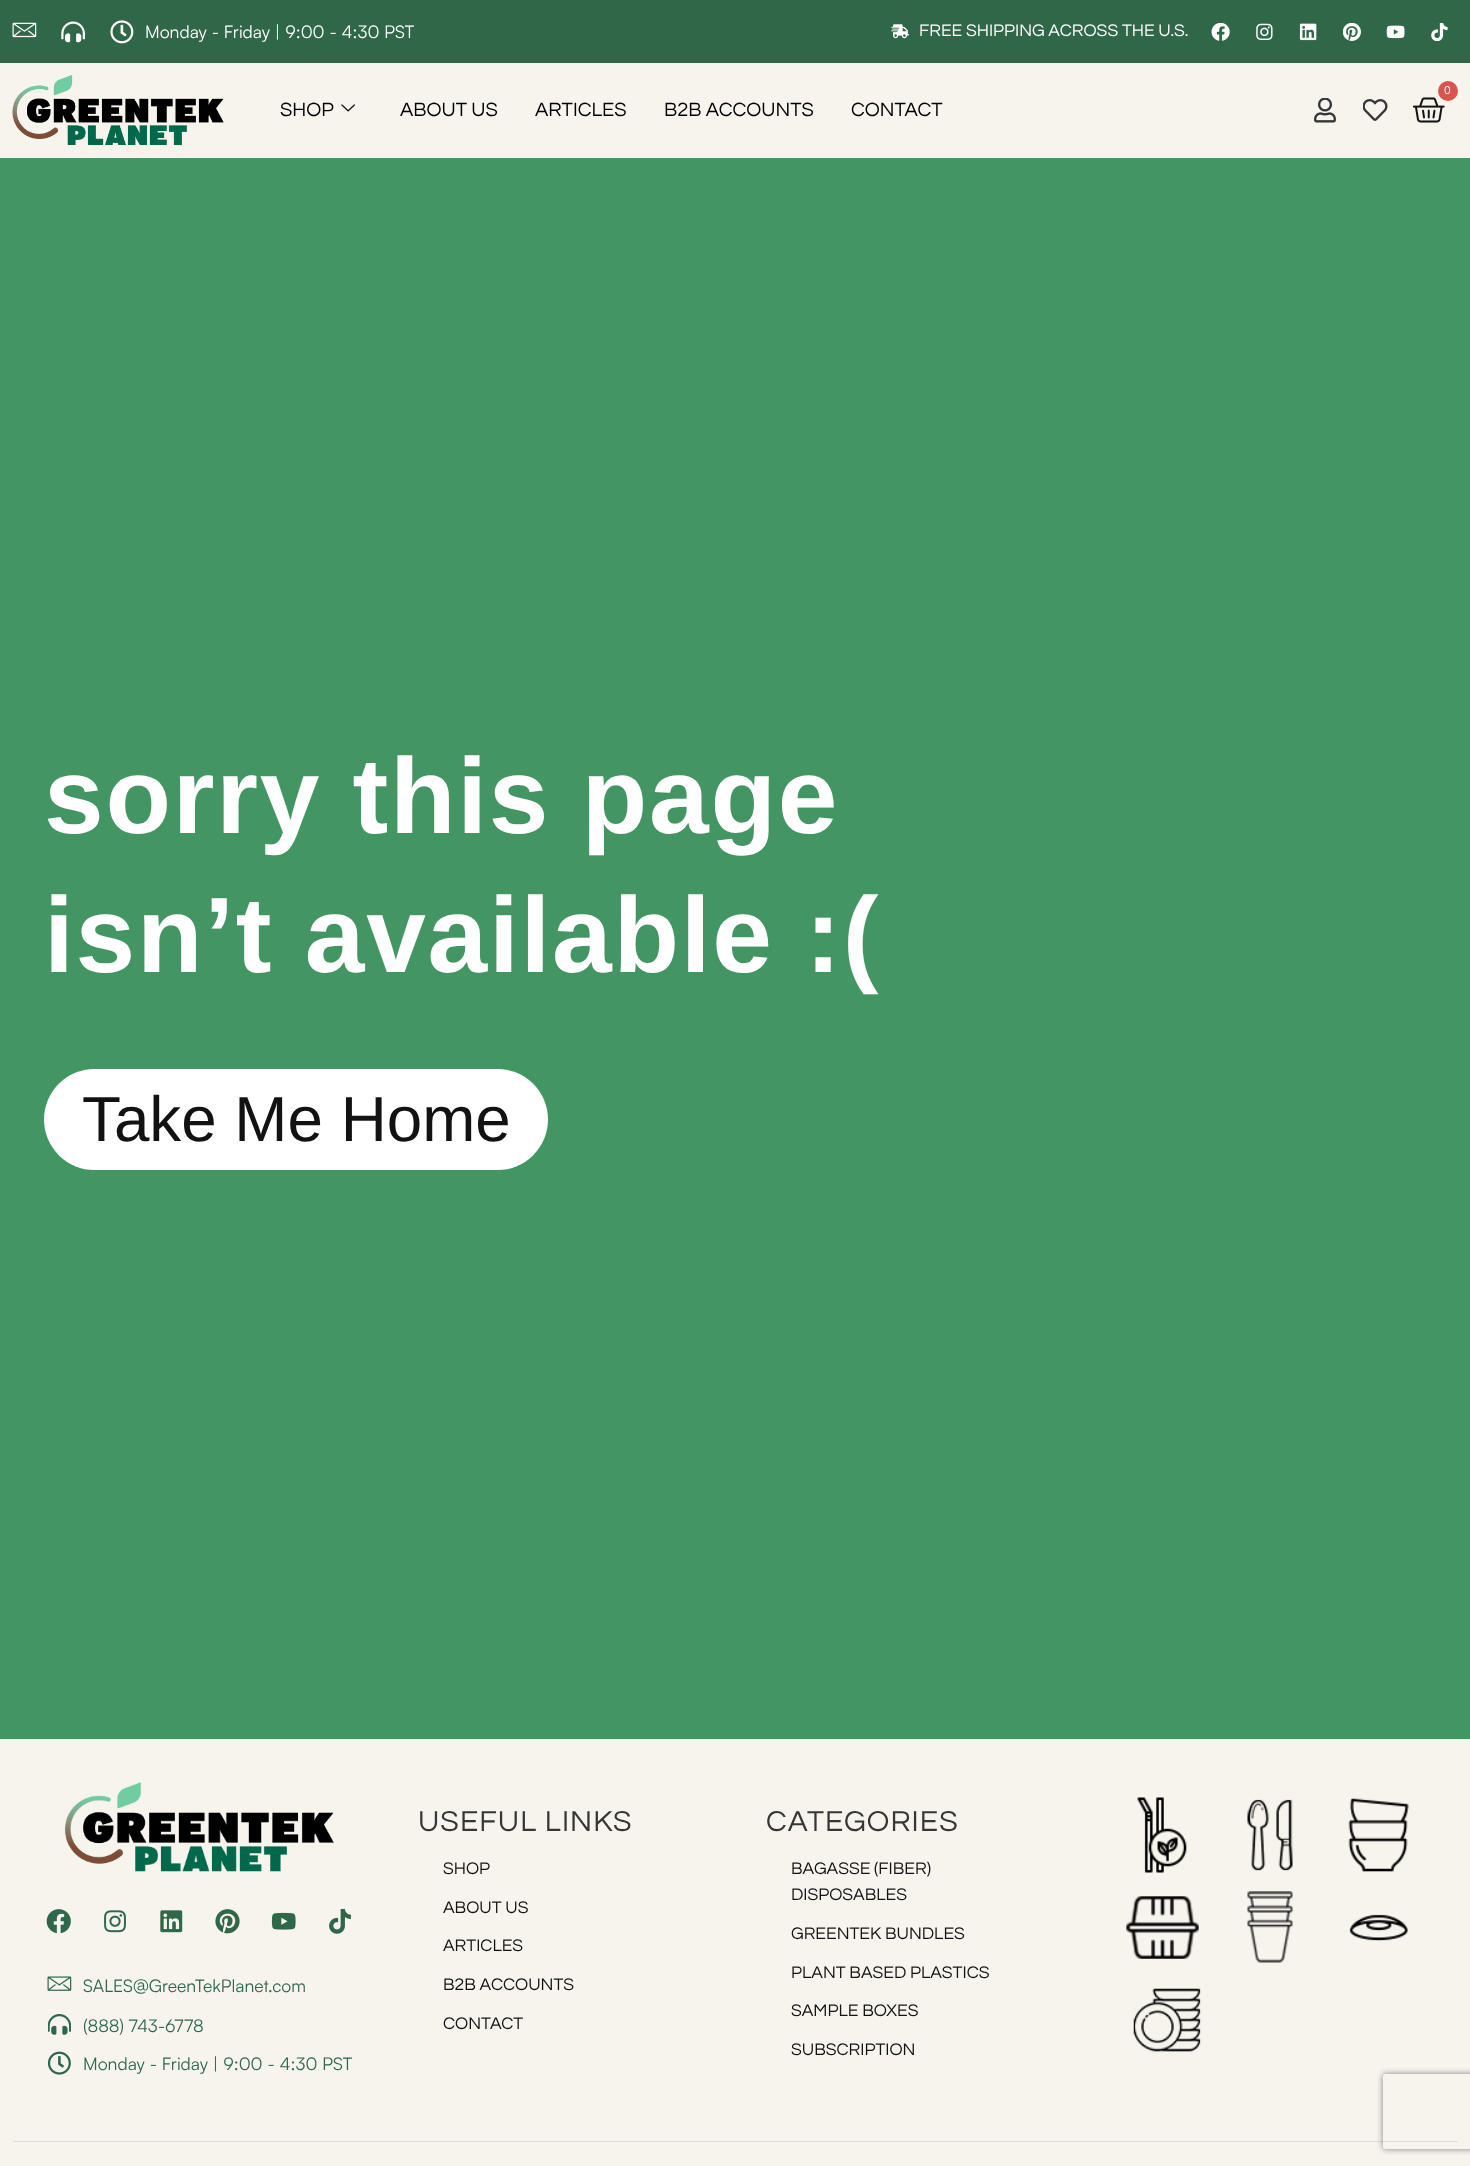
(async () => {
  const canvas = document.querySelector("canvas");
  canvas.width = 1470;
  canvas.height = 2166;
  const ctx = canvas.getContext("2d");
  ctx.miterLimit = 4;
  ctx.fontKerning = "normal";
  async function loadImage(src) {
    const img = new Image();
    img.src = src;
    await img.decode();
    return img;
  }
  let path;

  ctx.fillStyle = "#f6f4ed";
  ctx.fillRect(0, 0, 1470, 2166);
  ctx.fillStyle = "#2f6748";
  ctx.fillRect(0, 0, 1470, 63);
  ctx.drawImage(await loadImage("img/1.png"), 12, 22, 25, 16);
  ctx.drawImage(await loadImage("img/2.png"), 61, 21, 24, 22);
  ctx.drawImage(await loadImage("img/3.png"), 110, 20, 24, 24);
  ctx.drawImage(await loadImage("img/4.png"), 891, 24, 18, 15);
  ctx.drawImage(await loadImage("img/5.png"), 1211, 23, 19, 18);
  ctx.drawImage(await loadImage("img/6.png"), 1256, 23, 17, 17);
  ctx.drawImage(await loadImage("img/7.png"), 1299, 23, 18, 18);
  ctx.drawImage(await loadImage("img/8.png"), 1343, 23, 18, 18);
  ctx.drawImage(await loadImage("img/9.png"), 1386, 25, 19, 14);
  ctx.drawImage(await loadImage("img/10.png"), 1431, 23, 17, 18);
  ctx.drawImage(await loadImage("img/11.png"), 12, 75, 212, 70);
  ctx.drawImage(await loadImage("img/12.png"), 1413, 97, 32, 26);
  ctx.fillStyle = "#d9534f";
  ctx.beginPath();
  ctx.arc(1448, 91, 10, 0, Math.PI * 2);
  ctx.fill();
  ctx.drawImage(await loadImage("img/13.png"), 1314, 98, 22, 25);
  ctx.drawImage(await loadImage("img/14.png"), 1363, 99, 25, 22);
  ctx.drawImage(await loadImage("img/15.png"), 341, 104, 14, 8);
  ctx.fillStyle = "#439664";
  ctx.fillRect(0, 158, 1470, 1581);
  ctx.fillStyle = "#ffffff";
  ctx.beginPath();
  ctx.roundRect(44, 1069, 504, 101, 50.5);
  ctx.fill();
  ctx.drawImage(await loadImage("img/16.png"), 65, 1782, 269, 90);
  ctx.drawImage(await loadImage("img/17.png"), 46, 1909, 25, 25);
  ctx.drawImage(await loadImage("img/18.png"), 104, 1910, 22, 23);
  ctx.drawImage(await loadImage("img/19.png"), 160, 1910, 23, 23);
  ctx.drawImage(await loadImage("img/20.png"), 215, 1909, 25, 25);
  ctx.drawImage(await loadImage("img/21.png"), 271, 1912, 25, 18);
  ctx.drawImage(await loadImage("img/22.png"), 329, 1909, 22, 25);
  ctx.drawImage(await loadImage("img/23.png"), 47, 1976, 25, 15);
  ctx.drawImage(await loadImage("img/24.png"), 48, 2014, 23, 21);
  ctx.drawImage(await loadImage("img/25.png"), 48, 2051, 23, 24);
  ctx.drawImage(await loadImage("img/26.png"), 1137, 1797, 50, 76);
  ctx.drawImage(await loadImage("img/27.png"), 1247, 1799, 46, 72);
  ctx.drawImage(await loadImage("img/28.png"), 1348, 1798, 61, 74);
  ctx.drawImage(await loadImage("img/29.png"), 1126, 1896, 73, 63);
  ctx.drawImage(await loadImage("img/30.png"), 1247, 1891, 46, 72);
  ctx.drawImage(await loadImage("img/31.png"), 1349, 1914, 59, 27);
  ctx.drawImage(await loadImage("img/32.png"), 1133, 1988, 68, 64);
  ctx.fillStyle = "#dddbd5";
  ctx.fillRect(13, 2141, 1445, 1);
  ctx.save();
  path = new Path2D("M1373 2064H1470V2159H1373ZM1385.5 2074H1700.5C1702 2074 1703 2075 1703 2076.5V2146.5C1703 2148 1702 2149 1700.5 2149H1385.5C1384 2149 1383 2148 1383 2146.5V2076.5C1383 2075 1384 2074 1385.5 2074Z");
  ctx.clip(path, "evenodd");
  ctx.fillStyle = "#808080";
  ctx.filter = "blur(3px)";
  ctx.beginPath();
  ctx.roundRect(1383, 2074, 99, 75, 2.5);
  ctx.fill();
  ctx.filter = "none";
  ctx.restore();
  ctx.font = "17.5px Satoshi";
  ctx.fillStyle = "#ffffff";
  ctx.fillText("Monday - Friday | 9:00 - 4:30 PST", 145, 38);
  ctx.font = "17.5px Questrial";
  ctx.fillText("FREE SHIPPING ACROSS THE U.S.", 919, 36);
  ctx.font = "12px Questrial";
  ctx.fillText("0", 1444, 94);
  ctx.font = "20px Questrial";
  ctx.fillStyle = "#000000";
  for (const [text, x, y] of [
    ["SHOP", 280, 116],
    ["ABOUT US", 400, 116],
    ["ARTICLES", 535, 116],
    ["B2B ACCOUNTS", 664, 116],
    ["CONTACT", 851, 116],
  ]) {
    ctx.fillText(text, x, y);
  }
  ctx.letterSpacing = "1.75px";
  ctx.font = "bold 107.25px Liberation Sans";
  ctx.fillStyle = "#ffffff";
  ctx.fillText("sorry this page", 44, 833);
  ctx.fillText("isn’t available :(", 44, 972);
  ctx.letterSpacing = "0px";
  ctx.font = "63.75px Liberation Sans";
  ctx.fillStyle = "#121212";
  ctx.fillText("Take Me Home", 82, 1141);
  ctx.font = "17.5px Satoshi";
  ctx.fillStyle = "#2f6748";
  for (const [text, x, y] of [
    ["SALES@GreenTekPlanet.com", 83, 1992],
    ["(888) 743-6778", 83, 2032],
    ["Monday - Friday | 9:00 - 4:30 PST", 83, 2070],
  ]) {
    ctx.fillText(text, x, y);
  }
  ctx.letterSpacing = "1.1px";
  ctx.font = "30px Questrial";
  ctx.fillStyle = "#353636";
  ctx.fillText("USEFUL LINKS", 418, 1831);
  ctx.letterSpacing = "0px";
  ctx.font = "17.5px Questrial";
  ctx.fillStyle = "#121212";
  for (const [text, x, y] of [
    ["SHOP", 443, 1874],
    ["ABOUT US", 443, 1913],
    ["ARTICLES", 443, 1951],
    ["B2B ACCOUNTS", 443, 1990],
    ["CONTACT", 443, 2029],
  ]) {
    ctx.fillText(text, x, y);
  }
  ctx.letterSpacing = "1.1px";
  ctx.font = "30px Questrial";
  ctx.fillStyle = "#353636";
  ctx.fillText("CATEGORIES", 766, 1831);
  ctx.letterSpacing = "0px";
  ctx.font = "17.5px Questrial";
  ctx.fillStyle = "#121212";
  for (const [text, x, y] of [
    ["BAGASSE (FIBER)", 791, 1874],
    ["DISPOSABLES", 791, 1900],
    ["GREENTEK BUNDLES", 791, 1939],
    ["PLANT BASED PLASTICS", 791, 1978],
    ["SAMPLE BOXES", 791, 2016],
    ["SUBSCRIPTION", 791, 2055],
  ]) {
    ctx.fillText(text, x, y);
  }
})();
